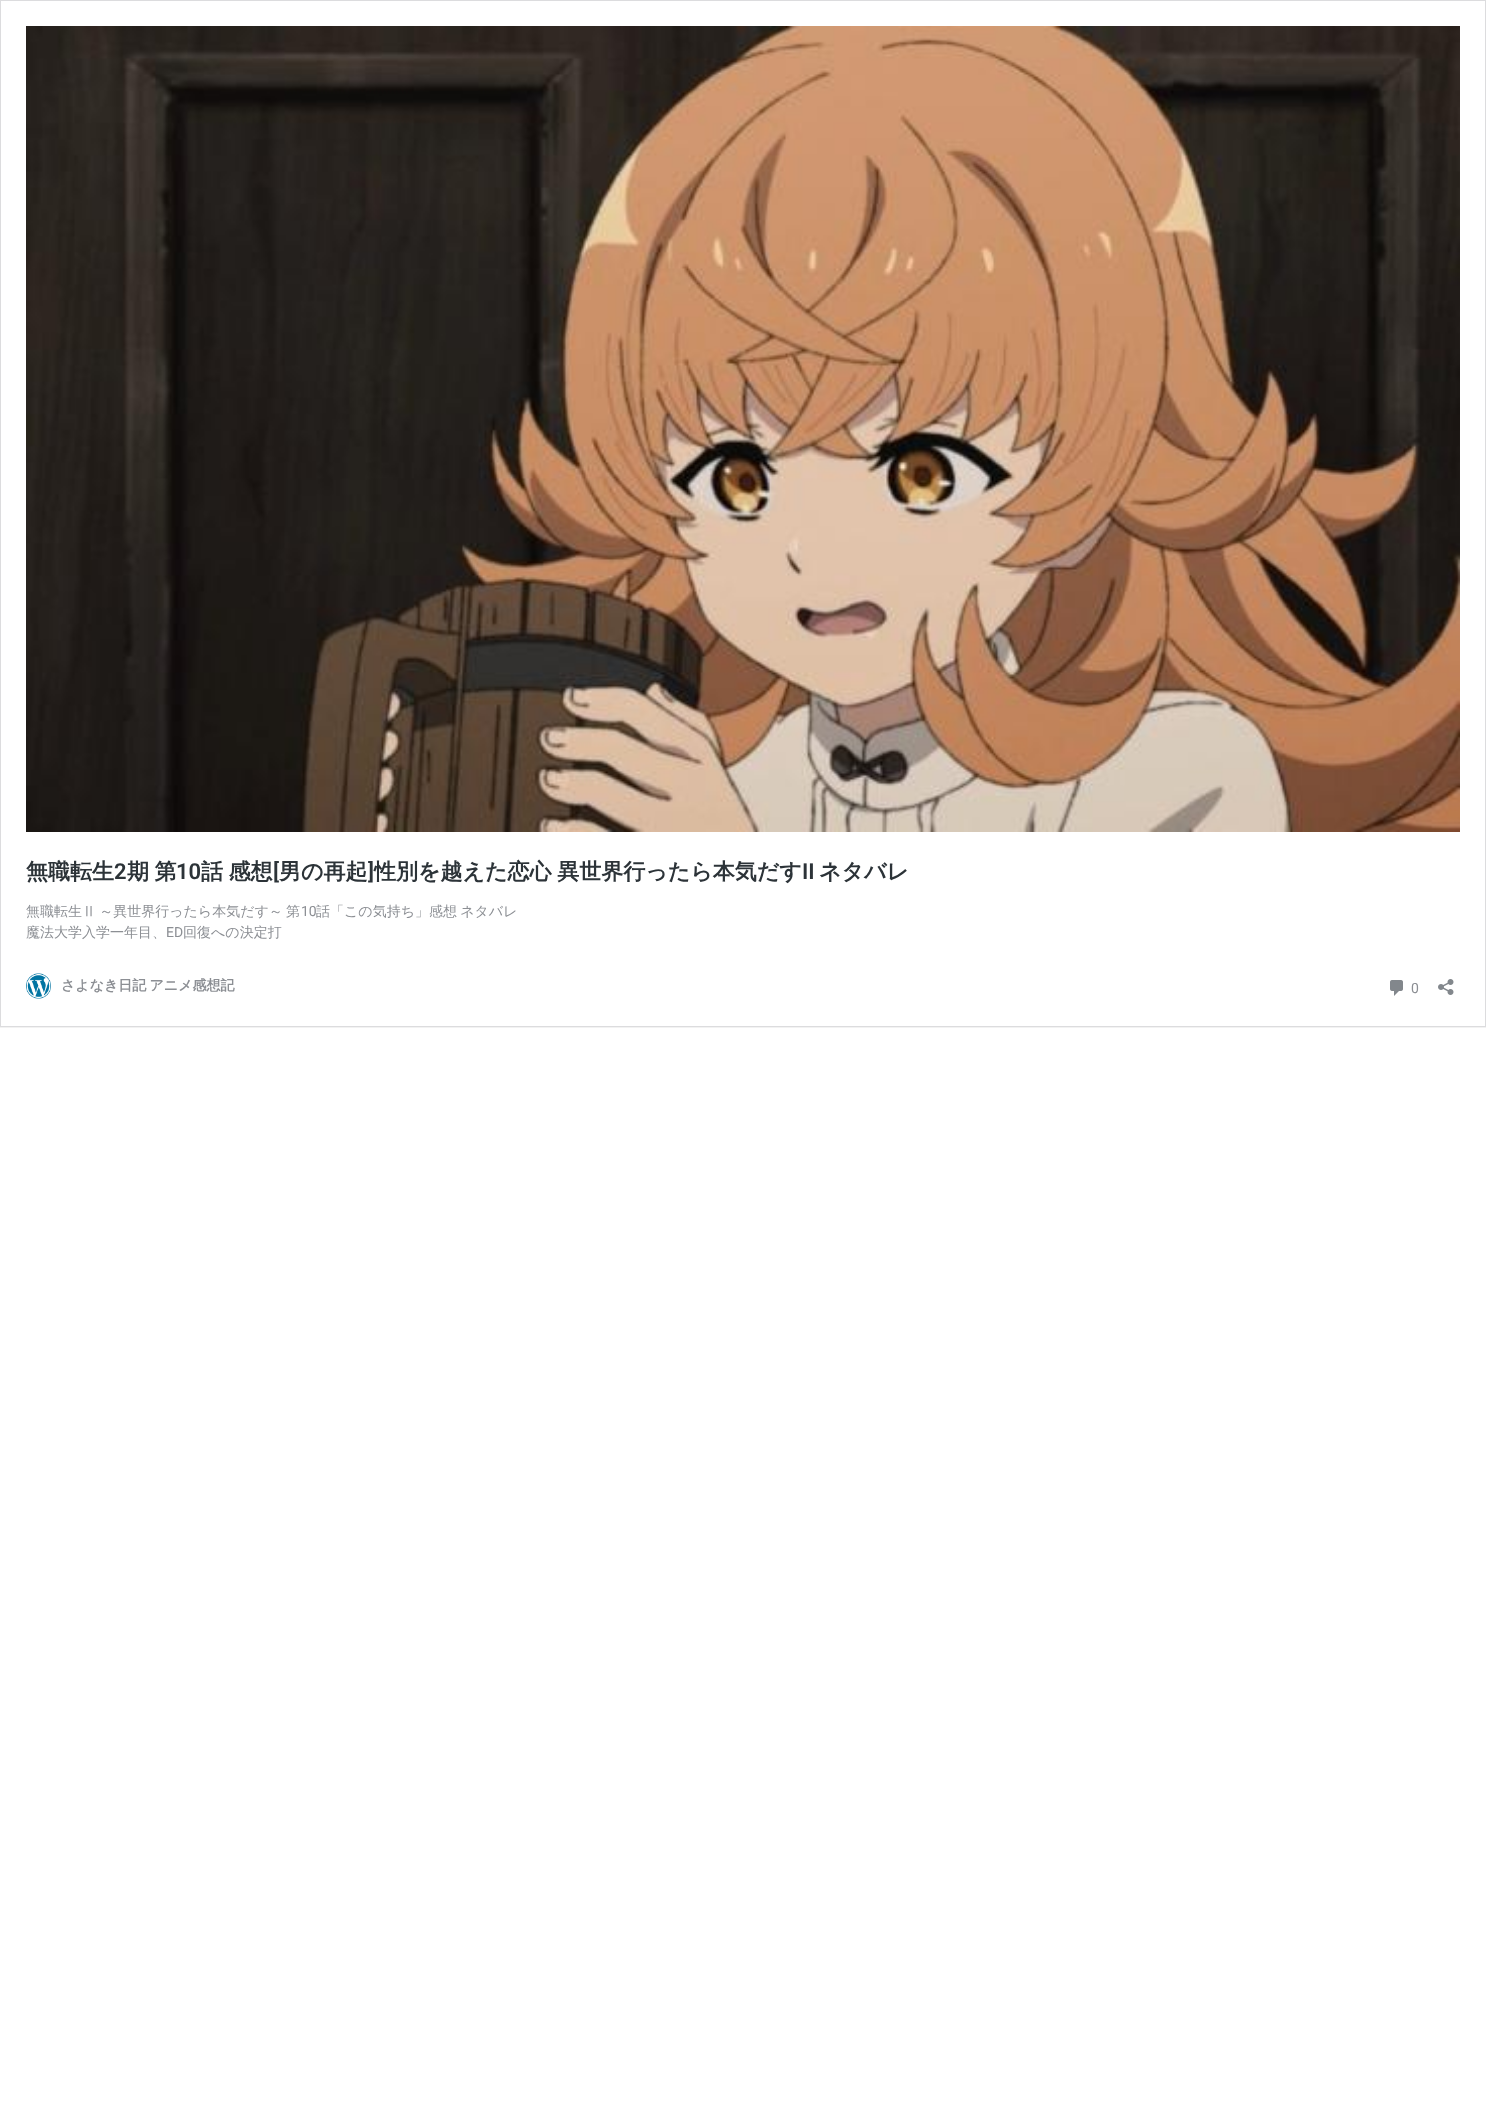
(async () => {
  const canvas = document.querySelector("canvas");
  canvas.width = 1486;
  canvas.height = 2127;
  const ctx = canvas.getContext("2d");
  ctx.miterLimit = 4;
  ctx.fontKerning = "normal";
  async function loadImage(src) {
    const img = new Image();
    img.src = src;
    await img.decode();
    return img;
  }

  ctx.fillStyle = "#ffffff";
  ctx.fillRect(0, 0, 1486, 2127);
  ctx.save();
  ctx.beginPath();
  ctx.rect(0, 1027, 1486, 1);
  ctx.clip();
  ctx.fillStyle = "rgba(0, 0, 0, 0.05)";
  ctx.filter = "blur(0.5px)";
  ctx.beginPath();
  ctx.rect(0, 1, 1486, 1027);
  ctx.fill();
  ctx.filter = "none";
  ctx.restore();
  ctx.strokeStyle = "#dcdcde";
  ctx.strokeRect(0.5, 0.5, 1485, 1026);
  ctx.drawImage(await loadImage("img/1.png"), 26, 26, 1434, 806);
  ctx.drawImage(await loadImage("img/2.png"), 26, 973, 25, 26);
  ctx.drawImage(await loadImage("img/3.png"), 1390, 980, 13, 16);
  ctx.drawImage(await loadImage("img/4.png"), 1438, 979, 16, 16);
  ctx.font = "bold 22px WenQuanYi Zen Hei";
  ctx.fillStyle = "#2c3338";
  ctx.fillText("無職転生", 26, 879);
  ctx.font = "600 22px Roboto";
  ctx.fillText("2", 114, 879);
  ctx.wordSpacing = "-1px";
  ctx.font = "bold 22px WenQuanYi Zen Hei";
  ctx.fillText("期 第", 127, 879);
  ctx.wordSpacing = "0px";
  ctx.font = "600 22px Roboto";
  ctx.fillText("10", 176, 879);
  ctx.wordSpacing = "-1px";
  ctx.font = "bold 22px WenQuanYi Zen Hei";
  ctx.fillText("話 感想", 201, 879);
  ctx.wordSpacing = "0px";
  ctx.font = "600 22px Roboto";
  ctx.fillText("[", 273, 879);
  ctx.font = "bold 22px WenQuanYi Zen Hei";
  ctx.fillText("男の再起", 279, 879);
  ctx.font = "600 22px Roboto";
  ctx.fillText("]", 368, 879);
  ctx.wordSpacing = "-1px";
  ctx.font = "bold 22px WenQuanYi Zen Hei";
  ctx.fillText("性別を越えた恋心 異世界行ったら本気だす", 374, 879);
  ctx.wordSpacing = "0px";
  ctx.font = "600 22px Roboto";
  ctx.fillText("II", 802, 879);
  ctx.font = "bold 22px WenQuanYi Zen Hei";
  ctx.fillText("ネタバレ", 819, 879);
  ctx.wordSpacing = "-1px";
  ctx.font = "500 14px WenQuanYi Zen Hei";
  ctx.fillStyle = "#8c8f94";
  ctx.fillText("無職転生Ⅱ ～異世界行ったら本気だす～ 第", 26, 916);
  ctx.wordSpacing = "0px";
  ctx.font = "14px Roboto";
  ctx.fillText("10", 301, 916);
  ctx.wordSpacing = "-1px";
  ctx.font = "500 14px WenQuanYi Zen Hei";
  ctx.fillText("話「この気持ち」感想 ネタバレ", 316, 916);
  ctx.wordSpacing = "0px";
  ctx.fillText("魔法大学入学一年目、", 26, 937);
  ctx.font = "14px Roboto";
  ctx.fillText("ED", 166, 937);
  ctx.font = "500 14px WenQuanYi Zen Hei";
  ctx.fillText("回復への決定打", 183, 937);
  ctx.wordSpacing = "-1px";
  ctx.font = "bold 14px WenQuanYi Zen Hei";
  ctx.fillText("さよなき日記 アニメ感想記", 61, 990);
  ctx.wordSpacing = "0px";
  ctx.font = "14px Roboto";
  ctx.fillText("0", 1411, 993);
})();
